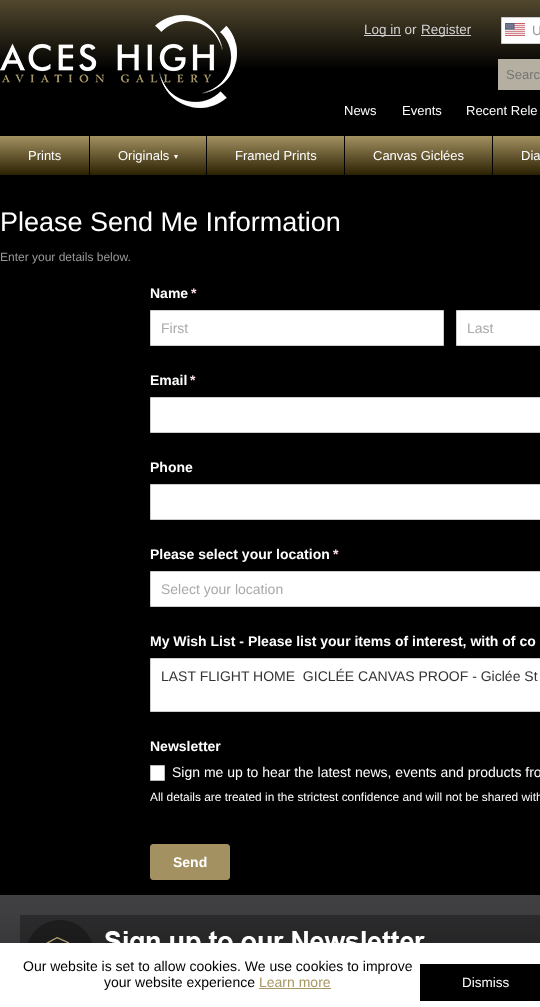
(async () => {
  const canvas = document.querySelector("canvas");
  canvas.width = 540;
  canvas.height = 1007;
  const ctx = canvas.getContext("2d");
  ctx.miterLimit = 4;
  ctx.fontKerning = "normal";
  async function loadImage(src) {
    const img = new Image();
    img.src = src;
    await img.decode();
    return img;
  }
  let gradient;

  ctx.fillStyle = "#000000";
  ctx.fillRect(0, 0, 540, 1007);
  gradient = ctx.createLinearGradient(270, 0, 270, 70);
  gradient.addColorStop(0, "#52482e");
  gradient.addColorStop(1, "#000000");
  ctx.fillStyle = gradient;
  ctx.fillRect(0, 0, 540, 68);
  ctx.drawImage(await loadImage("img/1.png"), 0, 15, 237, 93);
  ctx.fillStyle = "#d1d1d1";
  ctx.fillRect(364, 35, 37, 1);
  ctx.fillRect(421, 35, 50, 1);
  ctx.fillStyle = "#ffffff";
  ctx.beginPath();
  ctx.rect(501.5, 17.5, 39, 26);
  ctx.fill();
  ctx.strokeStyle = "#cccccc";
  ctx.stroke();
  ctx.drawImage(await loadImage("img/2.png"), 505, 23, 20, 13);
  ctx.fillStyle = "#b4afa1";
  ctx.fillRect(498, 59, 42, 31);
  gradient = ctx.createLinearGradient(450, 136, 450, 175);
  gradient.addColorStop(0, "#a39161");
  gradient.addColorStop(1, "#2b2002");
  ctx.fillStyle = gradient;
  ctx.fillRect(0, 136, 540, 39);
  for (const [x, y, w, h, color] of [
    [89, 136, 1, 39, "#000000"],
    [206, 136, 1, 39, "#000000"],
    [344, 136, 1, 39, "#000000"],
    [492, 136, 1, 39, "#000000"],
  ]) {
    ctx.fillStyle = color;
    ctx.fillRect(x, y, w, h);
  }
  ctx.fillStyle = "#ffffff";
  ctx.beginPath();
  ctx.rect(150.5, 310.5, 293, 35);
  ctx.fill();
  ctx.stroke();
  ctx.beginPath();
  ctx.rect(456.5, 310.5, 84, 35);
  ctx.fill();
  ctx.stroke();
  ctx.beginPath();
  ctx.rect(150.5, 397.5, 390, 35);
  ctx.fill();
  ctx.stroke();
  ctx.beginPath();
  ctx.rect(150.5, 484.5, 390, 35);
  ctx.fill();
  ctx.stroke();
  ctx.beginPath();
  ctx.rect(150.5, 571.5, 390, 35);
  ctx.fill();
  ctx.stroke();
  ctx.beginPath();
  ctx.rect(150.5, 658.5, 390, 53);
  ctx.fill();
  ctx.stroke();
  ctx.beginPath();
  ctx.rect(150.5, 765.5, 14, 15);
  ctx.fill();
  ctx.strokeStyle = "#bbbbbb";
  ctx.stroke();
  ctx.fillStyle = "#a39161";
  ctx.beginPath();
  ctx.roundRect(150.5, 844.5, 79, 35, 2.5);
  ctx.fill();
  ctx.strokeStyle = "#a39161";
  ctx.stroke();
  ctx.drawImage(await loadImage("img/3.png"), 0, 895, 540, 48);
  ctx.drawImage(await loadImage("img/4.png"), 20, 915, 520, 28);
  for (const [x, y, w, h, color] of [
    [0, 943, 540, 64, "#ffffff"],
    [259, 988, 72, 1, "#a69765"],
    [420, 964, 120, 37, "#000000"],
  ]) {
    ctx.fillStyle = color;
    ctx.fillRect(x, y, w, h);
  }
  ctx.font = "13.5px Liberation Sans";
  ctx.fillStyle = "#d1d1d1";
  ctx.fillText("Log in or", 364, 34);
  ctx.fillText("Register", 421, 34);
  ctx.fillStyle = "#999999";
  ctx.fillText("U", 532, 35);
  ctx.font = "13px Liberation Sans";
  ctx.fillStyle = "#757575";
  ctx.fillText("Searc", 506, 79);
  ctx.fillStyle = "#ffffff";
  for (const [text, x, y] of [
    ["News", 344, 115],
    ["Events", 402, 115],
    ["Recent Rele", 466, 115],
    ["Prints", 28, 160],
    ["Originals", 118, 160],
  ]) {
    ctx.fillText(text, x, y);
  }
  ctx.font = "8px DejaVu Sans";
  ctx.fillText("▾", 174, 159);
  ctx.font = "13px Liberation Sans";
  for (const [text, x, y] of [
    ["Framed Prints", 235, 160],
    ["Canvas Giclées", 373, 160],
    ["Dia", 521, 160],
  ]) {
    ctx.fillText(text, x, y);
  }
  ctx.font = "27px Liberation Sans";
  ctx.fillText("Please Send Me Information", 0, 231);
  ctx.font = "12px Liberation Sans";
  ctx.fillStyle = "#999999";
  ctx.fillText("Enter your details below.", 0, 261);
  ctx.font = "bold 14px Liberation Sans";
  ctx.fillStyle = "#ffffff";
  ctx.fillText("Name", 150, 298);
  ctx.fillStyle = "#ffe0e6";
  ctx.fillText("*", 191, 298);
  ctx.font = "14px Liberation Sans";
  ctx.fillStyle = "#a9a9a9";
  ctx.fillText("First", 161, 333);
  ctx.fillText("Last", 467, 333);
  ctx.font = "bold 14px Liberation Sans";
  ctx.fillStyle = "#ffffff";
  ctx.fillText("Email", 150, 385);
  ctx.fillStyle = "#ffe0e6";
  ctx.fillText("*", 190, 385);
  ctx.fillStyle = "#ffffff";
  ctx.fillText("Phone", 150, 472);
  ctx.fillText("Please select your location", 150, 559);
  ctx.fillStyle = "#ffe0e6";
  ctx.fillText("*", 333, 559);
  ctx.font = "14px Liberation Sans";
  ctx.fillStyle = "#a9a9a9";
  ctx.fillText("Select your location", 161, 594);
  ctx.font = "bold 14px Liberation Sans";
  ctx.fillStyle = "#ffffff";
  ctx.fillText("My Wish List - Please list your items of interest, with of co", 150, 646);
  ctx.font = "14px Liberation Sans";
  ctx.fillStyle = "#333333";
  ctx.fillText("LAST FLIGHT HOME  GICLÉE CANVAS PROOF - Giclée St", 161, 681);
  ctx.font = "bold 14px Liberation Sans";
  ctx.fillStyle = "#ffffff";
  ctx.fillText("Newsletter", 150, 751);
  ctx.font = "14px Liberation Sans";
  ctx.fillText("Sign me up to hear the latest news, events and products fro", 172, 777);
  ctx.font = "11.9px Liberation Sans";
  ctx.fillText("All details are treated in the strictest confidence and will not be shared with", 150, 801);
  ctx.font = "bold 14px Liberation Sans";
  ctx.fillText("Send", 173, 867);
  ctx.font = "14px Liberation Sans";
  ctx.fillStyle = "#000000";
  ctx.fillText("Our website is set to allow cookies. We use cookies to improve", 23, 971);
  ctx.fillText("your website experience", 104, 987);
  ctx.fillStyle = "#a69765";
  ctx.fillText("Learn more", 259, 987);
  ctx.font = "13.5px Liberation Sans";
  ctx.fillStyle = "#ffffff";
  ctx.fillText("Dismiss", 462, 987);
})();
